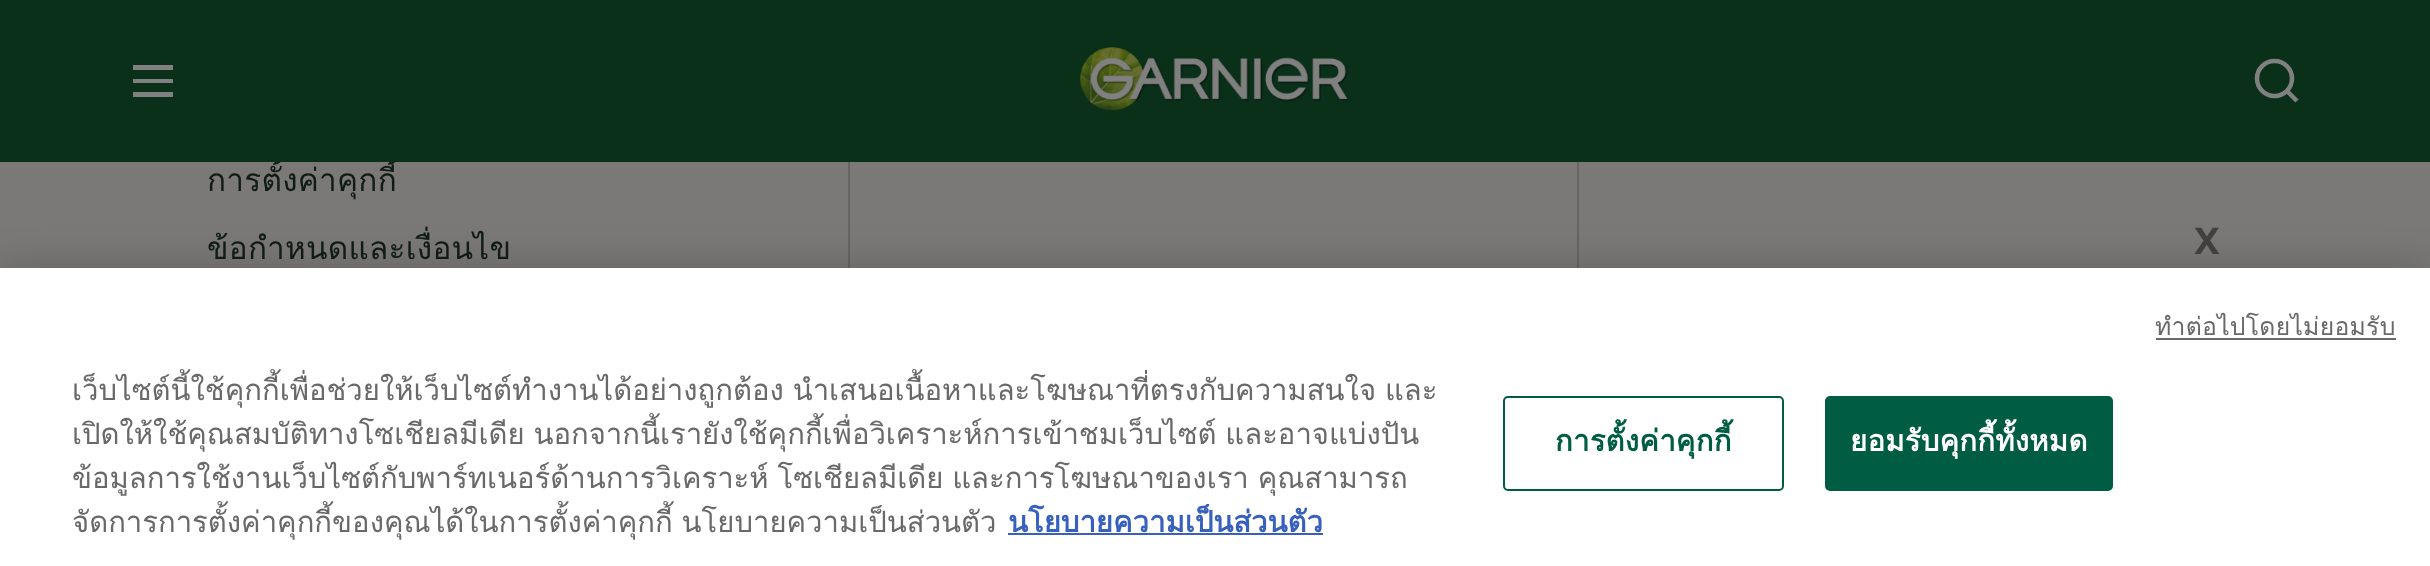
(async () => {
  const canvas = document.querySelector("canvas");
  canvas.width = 2430;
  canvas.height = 566;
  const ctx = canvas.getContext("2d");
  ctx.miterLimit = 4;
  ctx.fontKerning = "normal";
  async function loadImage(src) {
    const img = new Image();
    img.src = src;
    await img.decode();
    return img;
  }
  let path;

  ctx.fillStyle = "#7a7978";
  ctx.fillRect(0, 0, 2430, 566);
  ctx.fillStyle = "#656664";
  ctx.fillRect(848, 162, 2, 106);
  ctx.fillRect(1577, 162, 2, 106);
  ctx.fillStyle = "rgba(0, 0, 0, 0.2)";
  ctx.filter = "blur(20px)";
  ctx.beginPath();
  ctx.rect(0, 268, 2430, 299);
  ctx.fill();
  ctx.filter = "none";
  for (const [x, y, w, h, color] of [
    [0, 268, 2430, 298, "#ffffff"],
    [2156, 338, 240, 2, "#696969"],
    [1008, 533, 315, 2, "#3860be"],
  ]) {
    ctx.fillStyle = color;
    ctx.fillRect(x, y, w, h);
  }
  ctx.beginPath();
  ctx.roundRect(1504, 397, 279, 93, 4);
  ctx.strokeStyle = "#005c43";
  ctx.lineWidth = 2;
  ctx.stroke();
  ctx.fillStyle = "#005c43";
  ctx.beginPath();
  ctx.roundRect(1826, 397, 286, 93, 4);
  ctx.fill();
  ctx.stroke();
  ctx.letterSpacing = "0.25px";
  ctx.font = "31.5px Loma";
  ctx.fillStyle = "#111b16";
  ctx.fillText("การตั้งค่าคุกกี้", 207, 191);
  for (const [x, y, w, h, color] of [
    [0, 0, 2430, 162, "#0b3019"],
    [133, 92, 40, 5, "#808080"],
    [133, 79, 40, 4, "#808080"],
    [133, 65, 40, 5, "#808080"],
  ]) {
    ctx.fillStyle = color;
    ctx.fillRect(x, y, w, h);
  }
  ctx.beginPath();
  ctx.arc(2274.5, 78.5, 17.5, 0, Math.PI * 2);
  ctx.strokeStyle = "#808080";
  ctx.lineWidth = 4.5;
  ctx.stroke();
  path = new Path2D("M2287 91L2297 101");
  ctx.lineJoin = "round";
  ctx.stroke(path);
  ctx.drawImage(await loadImage("img/1.png"), 1080, 47, 269, 64);
  ctx.fillStyle = "#111b16";
  ctx.fillText("ข้อกำหนดและเงื่อนไข", 207, 259);
  ctx.letterSpacing = "0px";
  ctx.font = "36px 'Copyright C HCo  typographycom'";
  ctx.fillStyle = "#404040";
  ctx.fillText("X", 2193, 254);
  ctx.letterSpacing = "0.25px";
  ctx.font = "24.75px Loma";
  ctx.fillStyle = "#696969";
  ctx.fillText("ทําต่อไปโดยไม่ยอมรับ", 2155, 335);
  ctx.save();
  ctx.beginPath();
  ctx.rect(72, 369, 1386, 176);
  ctx.clip();
  ctx.letterSpacing = "0px";
  ctx.wordSpacing = "-1px";
  ctx.font = "29.25px Loma";
  for (const [text, x, y] of [
    ["เว็บไซต์นี้ใช้คุกกี้เพื่อช่วยให้เว็บไซต์ทำงานได้อย่างถูกต้อง นำเสนอเนื้อหาและโฆษณาที่ตรงกับความสนใจ และ", 72, 400],
    ["เปิดให้ใช้คุณสมบัติทางโซเชียลมีเดีย นอกจากนี้เรายังใช้คุกกี้เพื่อวิเคราะห์การเข้าชมเว็บไซต์ และอาจแบ่งปัน", 72, 444],
    ["ข้อมูลการใช้งานเว็บไซต์กับพาร์ทเนอร์ด้านการวิเคราะห์ โซเชียลมีเดีย และการโฆษณาของเรา คุณสามารถ", 72, 488],
    ["จัดการการตั้งค่าคุกกี้ของคุณได้ในการตั้งค่าคุกกี้ นโยบายความเป็นส่วนตัว", 72, 532],
  ]) {
    ctx.fillText(text, x, y);
  }
  ctx.restore();
  ctx.letterSpacing = "0px";
  ctx.font = "bold 29.25px Loma";
  ctx.fillStyle = "#3860be";
  ctx.fillText("นโยบายความเป็นส่วนตัว", 1008, 532);
  ctx.letterSpacing = "0.25px";
  ctx.fillStyle = "#005c43";
  ctx.fillText("การตั้งค่าคุกกี้", 1555, 451);
  ctx.fillStyle = "#ffffff";
  ctx.fillText("ยอมรับคุกกี้ทั้งหมด", 1850, 451);
})();
